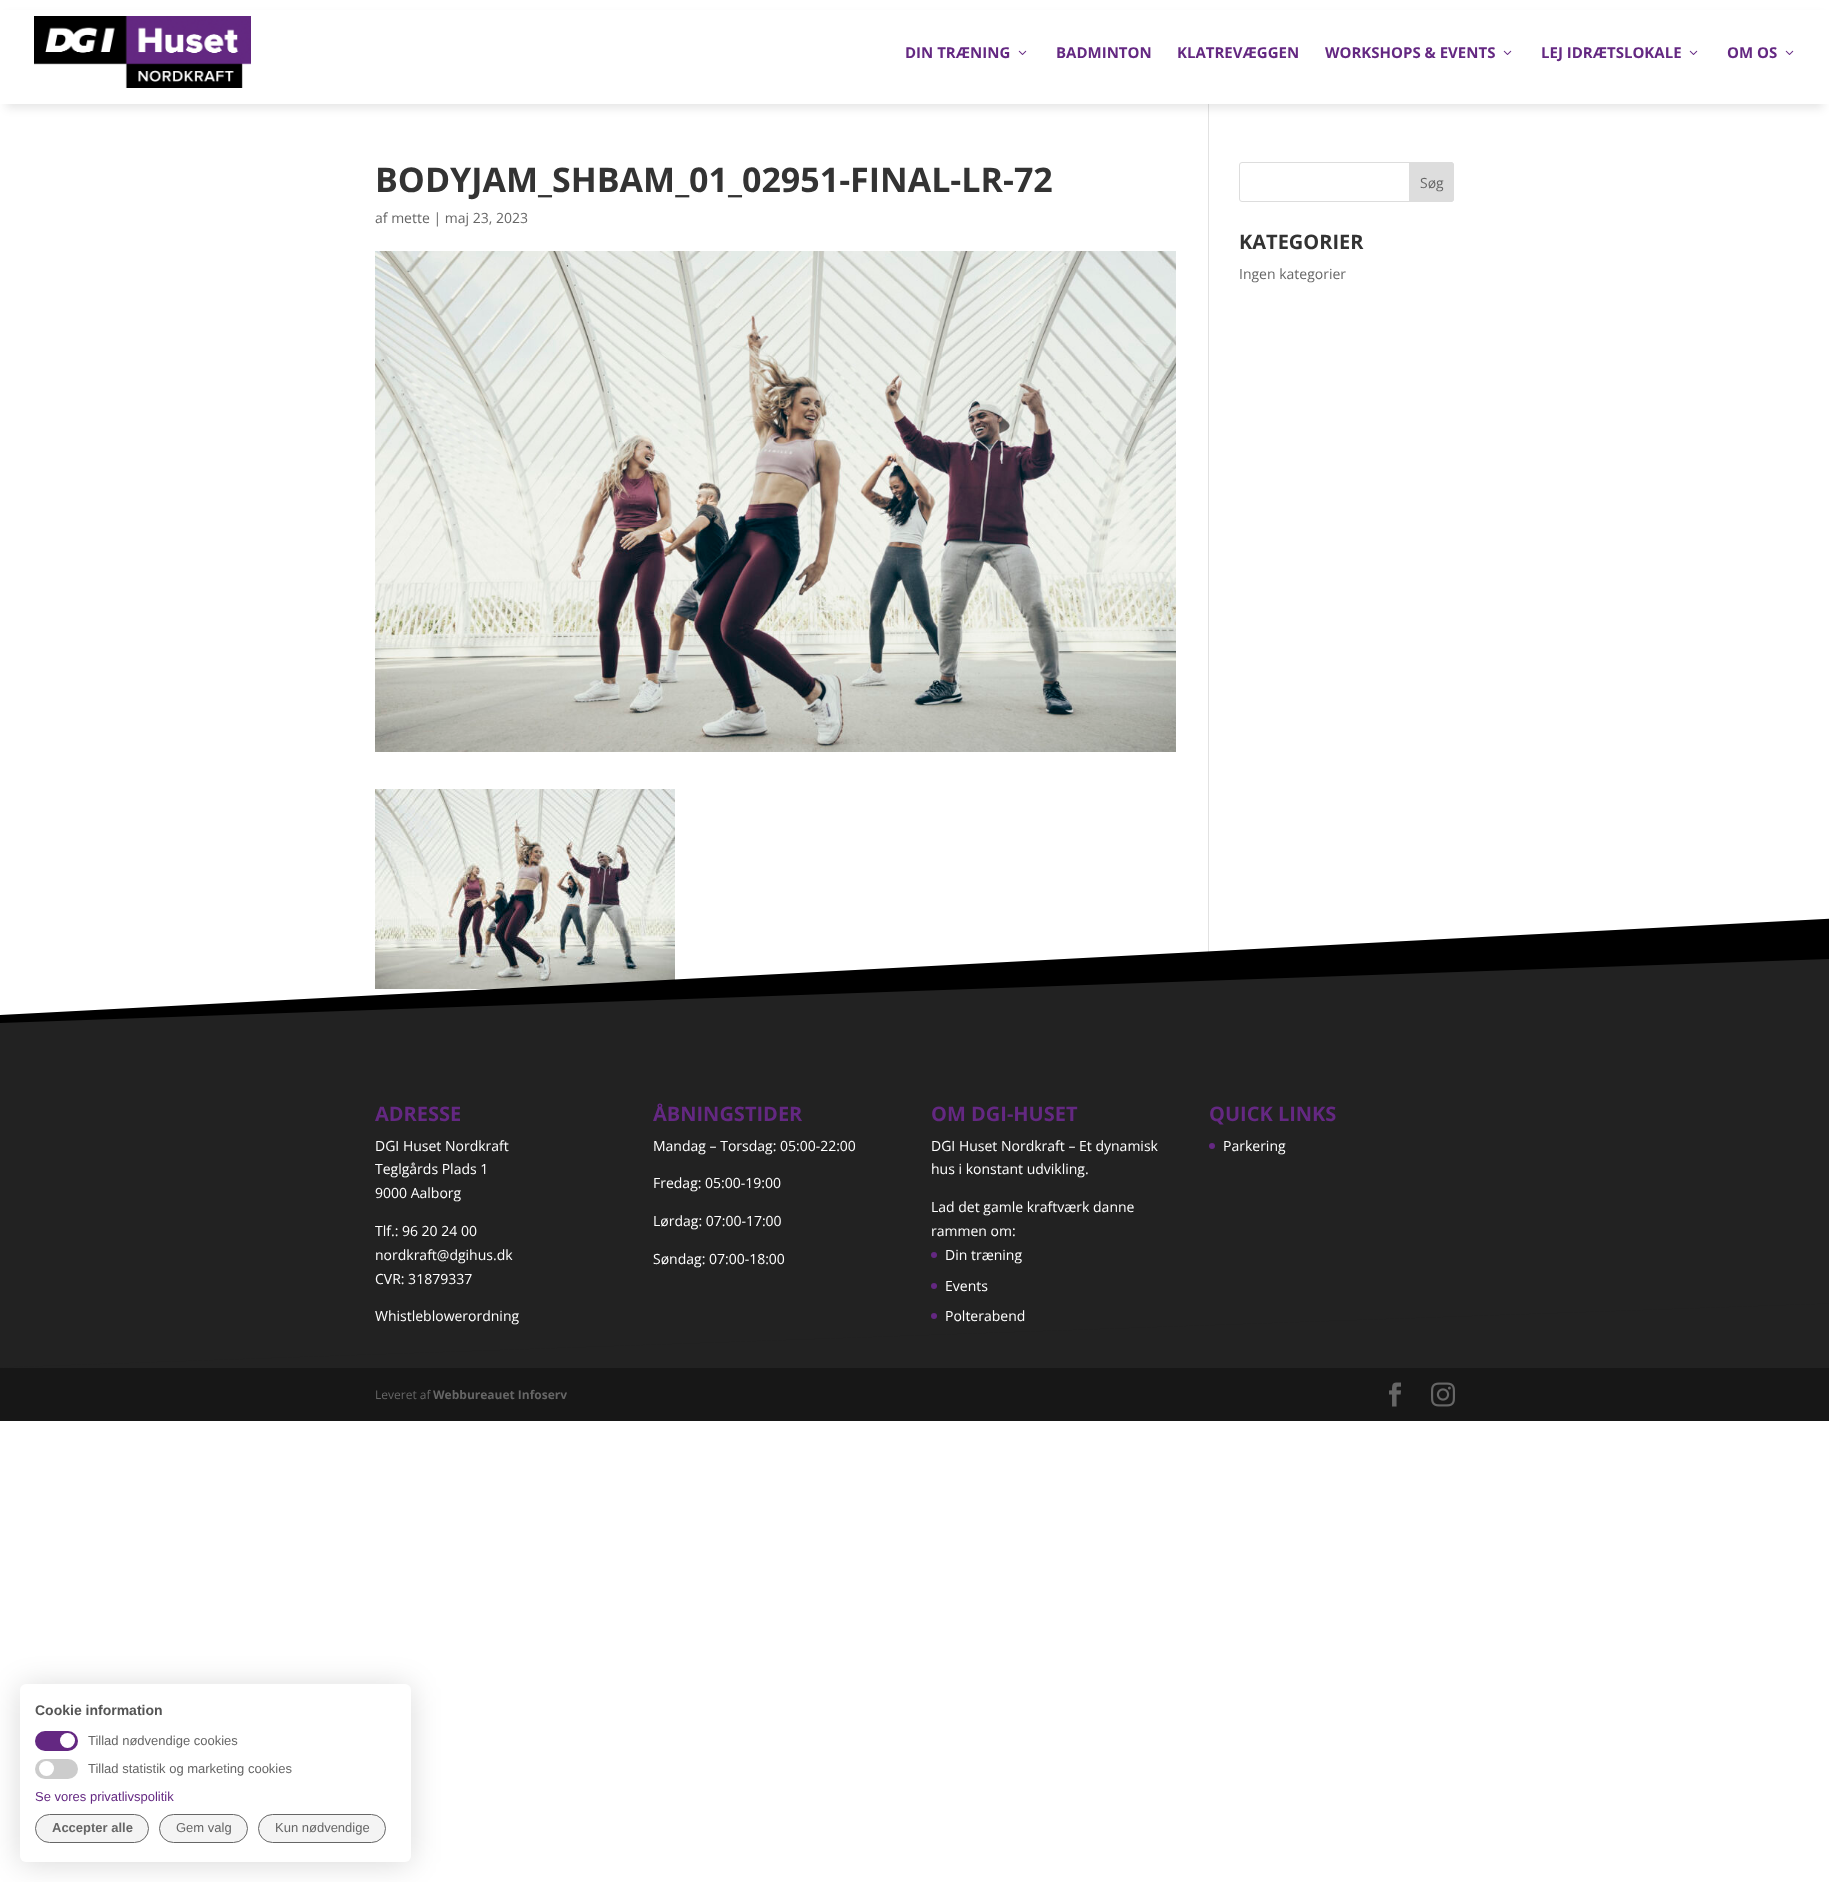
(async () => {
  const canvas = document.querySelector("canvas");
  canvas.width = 1829;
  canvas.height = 1882;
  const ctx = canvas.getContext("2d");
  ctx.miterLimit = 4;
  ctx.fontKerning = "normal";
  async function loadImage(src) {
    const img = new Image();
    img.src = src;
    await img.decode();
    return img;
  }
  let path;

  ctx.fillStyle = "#ffffff";
  ctx.fillRect(0, 0, 1829, 1882);
  ctx.fillStyle = "#e2e2e2";
  ctx.fillRect(1208, 104, 1, 848);
  ctx.fillStyle = "rgba(0, 0, 0, 0.1)";
  ctx.filter = "blur(5px)";
  ctx.beginPath();
  ctx.rect(6, 16, 1817, 92);
  ctx.fill();
  ctx.filter = "none";
  ctx.fillStyle = "#ffffff";
  ctx.fillRect(0, 10, 1829, 94);
  ctx.drawImage(await loadImage("img/1.png"), 34, 16, 217, 72);
  ctx.drawImage(await loadImage("img/2.png"), 1018, 50, 9, 5);
  ctx.drawImage(await loadImage("img/2.png"), 1503, 50, 9, 5);
  ctx.drawImage(await loadImage("img/2.png"), 1689, 50, 9, 5);
  ctx.drawImage(await loadImage("img/2.png"), 1785, 50, 9, 5);
  ctx.drawImage(await loadImage("img/3.png"), 375, 251, 801, 501);
  ctx.drawImage(await loadImage("img/4.png"), 375, 789, 300, 200);
  ctx.beginPath();
  ctx.roundRect(1239.5, 162.5, 214, 39, 2.5);
  ctx.strokeStyle = "#dddddd";
  ctx.stroke();
  ctx.fillStyle = "#dddddd";
  ctx.beginPath();
  ctx.roundRect(1409.5, 162.5, 44, 39, [0, 2.5, 2.5, 0]);
  ctx.fill();
  ctx.stroke();
  ctx.fillStyle = "#222222";
  ctx.fillRect(0, 1303, 1829, 65);
  ctx.fillStyle = "#000000";
  path = new Path2D("M-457 1039L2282 895L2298 1182L-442 1325Z");
  ctx.fill(path);
  ctx.fillStyle = "#222222";
  path = new Path2D("M-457 1039L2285 943L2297 1287L-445 1383Z");
  ctx.fill(path);
  ctx.fillStyle = "#642882";
  ctx.beginPath();
  ctx.arc(934, 1255, 3, 0, Math.PI * 2);
  ctx.fill();
  ctx.beginPath();
  ctx.arc(934, 1286, 3, 0, Math.PI * 2);
  ctx.fill();
  ctx.beginPath();
  ctx.arc(934, 1316, 3, 0, Math.PI * 2);
  ctx.fill();
  ctx.beginPath();
  ctx.arc(1212, 1146, 3, 0, Math.PI * 2);
  ctx.fill();
  ctx.fillStyle = "#171717";
  ctx.fillRect(0, 1368, 1829, 53);
  ctx.drawImage(await loadImage("img/5.png"), 1389, 1382, 12, 25);
  ctx.drawImage(await loadImage("img/6.png"), 1431, 1382, 24, 25);
  ctx.fillStyle = "rgba(0, 0, 0, 0.15)";
  ctx.filter = "blur(15px)";
  ctx.beginPath();
  ctx.roundRect(20, 1686, 391, 178, 6);
  ctx.fill();
  ctx.filter = "none";
  ctx.fillStyle = "#ffffff";
  ctx.beginPath();
  ctx.roundRect(20, 1684, 391, 178, 6);
  ctx.fill();
  ctx.fillStyle = "#642882";
  ctx.beginPath();
  ctx.roundRect(35, 1731, 43, 20, 10);
  ctx.fill();
  ctx.fillStyle = "#ffffff";
  ctx.beginPath();
  ctx.arc(67.5, 1740.5, 7.5, 0, Math.PI * 2);
  ctx.fill();
  ctx.fillStyle = "#cccccc";
  ctx.beginPath();
  ctx.roundRect(35, 1759, 43, 20, 10);
  ctx.fill();
  ctx.fillStyle = "#ffffff";
  ctx.beginPath();
  ctx.arc(46.5, 1768.5, 7.5, 0, Math.PI * 2);
  ctx.fill();
  ctx.fillStyle = "#f4f4f4";
  ctx.beginPath();
  ctx.roundRect(35.5, 1814.5, 113, 28, 14);
  ctx.fill();
  ctx.strokeStyle = "#666666";
  ctx.stroke();
  ctx.beginPath();
  ctx.roundRect(159.5, 1814.5, 88, 28, 14);
  ctx.fill();
  ctx.stroke();
  ctx.beginPath();
  ctx.roundRect(258.5, 1814.5, 127, 28, 14);
  ctx.fill();
  ctx.stroke();
  ctx.font = "bold 15px Open Sans";
  ctx.fillStyle = "#642882";
  for (const [text, x, y] of [
    ["DIN TRÆNING", 905, 58],
    ["BADMINTON", 1056, 58],
    ["KLATREVÆGGEN", 1177, 58],
    ["WORKSHOPS & EVENTS", 1325, 58],
    ["LEJ IDRÆTSLOKALE", 1541, 58],
    ["OM OS", 1727, 58],
  ]) {
    ctx.fillText(text, x, y);
  }
  ctx.font = "bold 34px Open Sans";
  ctx.fillStyle = "#333333";
  ctx.fillText("BODYJAM_SHBAM_01_02951-FINAL-LR-72", 375, 192);
  ctx.font = "14px Open Sans";
  ctx.fillStyle = "#666666";
  ctx.fillText("af mette | maj 23, 2023", 375, 223);
  ctx.fillText("Søg", 1420, 188);
  ctx.font = "bold 20px Open Sans";
  ctx.fillStyle = "#333333";
  ctx.fillText("KATEGORIER", 1239, 249);
  ctx.font = "14px Open Sans";
  ctx.fillStyle = "#666666";
  ctx.fillText("Ingen kategorier", 1239, 279);
  ctx.font = "bold 20px Open Sans";
  ctx.fillStyle = "#642882";
  ctx.fillText("ADRESSE", 375, 1121);
  ctx.font = "14px Open Sans";
  ctx.fillStyle = "#ffffff";
  for (const [text, x, y] of [
    ["DGI Huset Nordkraft", 375, 1151],
    ["Teglgårds Plads 1", 375, 1174],
    ["9000 Aalborg", 375, 1198],
    ["Tlf.: 96 20 24 00", 375, 1236],
    ["nordkraft@dgihus.dk", 375, 1260],
    ["CVR: 31879337", 375, 1284],
    ["Whistleblowerordning", 375, 1321],
  ]) {
    ctx.fillText(text, x, y);
  }
  ctx.font = "bold 20px Open Sans";
  ctx.fillStyle = "#642882";
  ctx.fillText("ÅBNINGSTIDER", 653, 1121);
  ctx.font = "14px Open Sans";
  ctx.fillStyle = "#ffffff";
  for (const [text, x, y] of [
    ["Mandag – Torsdag: 05:00-22:00", 653, 1151],
    ["Fredag: 05:00-19:00", 653, 1188],
    ["Lørdag: 07:00-17:00", 653, 1226],
    ["Søndag: 07:00-18:00", 653, 1264],
  ]) {
    ctx.fillText(text, x, y);
  }
  ctx.font = "bold 20px Open Sans";
  ctx.fillStyle = "#642882";
  ctx.fillText("OM DGI-HUSET", 931, 1121);
  ctx.font = "14px Open Sans";
  ctx.fillStyle = "#ffffff";
  for (const [text, x, y] of [
    ["DGI Huset Nordkraft – Et dynamisk", 931, 1151],
    ["hus i konstant udvikling.", 931, 1174],
    ["Lad det gamle kraftværk danne", 931, 1212],
    ["rammen om:", 931, 1236],
    ["Din træning", 945, 1260],
    ["Events", 945, 1291],
    ["Polterabend", 945, 1321],
  ]) {
    ctx.fillText(text, x, y);
  }
  ctx.font = "bold 20px Open Sans";
  ctx.fillStyle = "#642882";
  ctx.fillText("QUICK LINKS", 1209, 1121);
  ctx.font = "14px Open Sans";
  ctx.fillStyle = "#ffffff";
  ctx.fillText("Parkering", 1223, 1151);
  ctx.font = "12px Open Sans";
  ctx.fillStyle = "#666666";
  ctx.fillText("Leveret af", 375, 1399);
  ctx.font = "bold 12px Open Sans";
  ctx.fillText("Webbureauet Infoserv", 433, 1399);
  ctx.font = "bold 14px Liberation Sans";
  ctx.fillStyle = "#555555";
  ctx.fillText("Cookie information", 35, 1715);
  ctx.font = "13px Liberation Sans";
  ctx.fillStyle = "#666666";
  ctx.fillText("Tillad nødvendige cookies", 88, 1745);
  ctx.fillText("Tillad statistik og marketing cookies", 88, 1773);
  ctx.fillStyle = "#642882";
  ctx.fillText("Se vores privatlivspolitik", 35, 1801);
  ctx.font = "bold 13px Liberation Sans";
  ctx.fillStyle = "#666666";
  ctx.fillText("Accepter alle", 52, 1832);
  ctx.font = "13px Liberation Sans";
  ctx.fillText("Gem valg", 176, 1832);
  ctx.fillText("Kun nødvendige", 275, 1832);
})();
